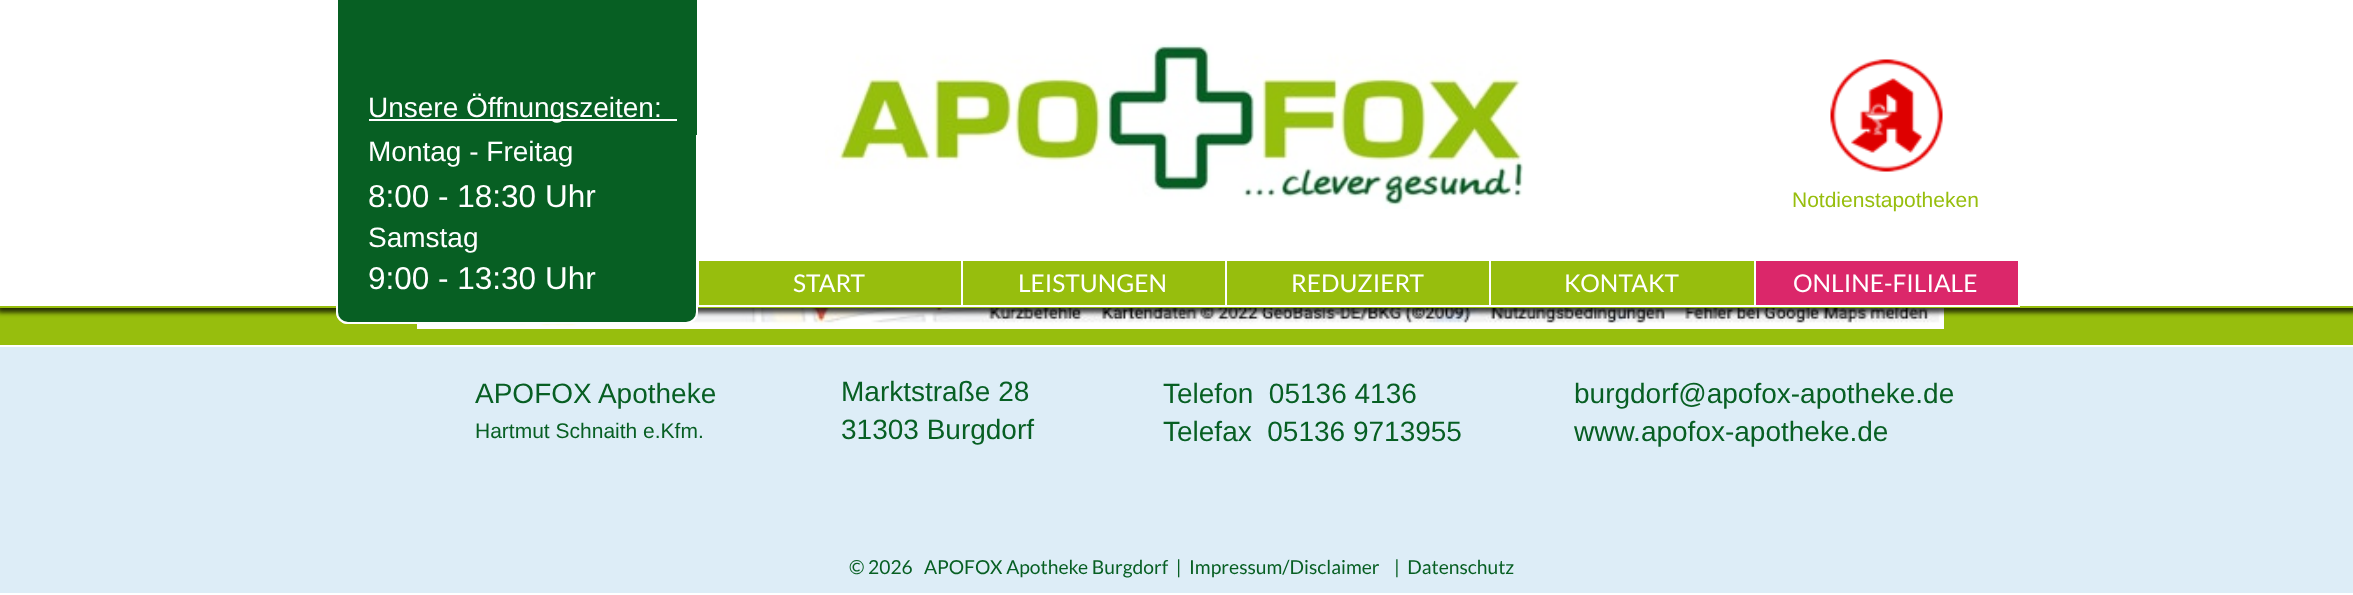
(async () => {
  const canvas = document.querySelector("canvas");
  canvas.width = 2353;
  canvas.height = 595;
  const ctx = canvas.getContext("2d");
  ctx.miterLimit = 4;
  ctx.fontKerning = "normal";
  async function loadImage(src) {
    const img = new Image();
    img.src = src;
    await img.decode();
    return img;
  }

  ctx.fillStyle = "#97be0d";
  ctx.fillRect(0, 0, 2353, 595);
  ctx.strokeStyle = "#ffffff";
  ctx.lineWidth = 4;
  ctx.strokeRect(419, -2, 1523, 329);
  ctx.drawImage(await loadImage("img/3.png"), 420, 308, 1521, 18);
  ctx.fillStyle = "rgba(0, 0, 0, 0.5)";
  ctx.filter = "blur(2.5px)";
  ctx.beginPath();
  ctx.rect(-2, -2, 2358, 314);
  ctx.fill();
  ctx.filter = "none";
  ctx.beginPath();
  ctx.roundRect(337, 106, 360, 217, 11);
  ctx.lineWidth = 2;
  ctx.stroke();
  ctx.filter = "blur(2.5px)";
  ctx.beginPath();
  ctx.rect(-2, -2, 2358, 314);
  ctx.fill();
  ctx.filter = "none";
  for (const [x, y, w, h, color] of [
    [0, 0, 2353, 306, "#ffffff"],
    [0, 306, 2353, 2, "#97be0d"],
    [697, 306, 794, 1, "#ffffff"],
  ]) {
    ctx.fillStyle = color;
    ctx.fillRect(x, y, w, h);
  }
  ctx.fillStyle = "#075f23";
  ctx.beginPath();
  ctx.roundRect(337, 106, 360, 217, 11);
  ctx.fill();
  ctx.stroke();
  ctx.fillRect(338, 0, 359, 135);
  ctx.fillStyle = "#ffffff";
  ctx.fillRect(369, 119, 308, 2);
  ctx.drawImage(await loadImage("img/1.png"), 825, 44, 698, 165);
  ctx.drawImage(await loadImage("img/2.png"), 1830, 59, 113, 113);
  for (const [x, y, w, h, color] of [
    [699, 261, 262, 44, "#97be0d"],
    [963, 261, 262, 44, "#97be0d"],
    [1227, 261, 262, 44, "#97be0d"],
    [1491, 261, 263, 44, "#97be0d"],
    [1756, 261, 262, 44, "#db276a"],
    [1489, 306, 531, 1, "#ffffff"],
    [0, 347, 2353, 246, "#ddedf7"],
    [0, 345, 2353, 2, "#ffffff"],
    [0, 593, 2353, 2, "#ffffff"],
  ]) {
    ctx.fillStyle = color;
    ctx.fillRect(x, y, w, h);
  }
  ctx.font = "28px Liberation Sans";
  ctx.fillText("Unsere Öffnungszeiten:", 368, 117);
  ctx.fillText("Montag - Freitag", 368, 161);
  ctx.font = "31.5px Liberation Sans";
  ctx.fillText("8:00 - 18:30 Uhr", 368, 207);
  ctx.font = "28px Liberation Sans";
  ctx.fillText("Samstag", 368, 247);
  ctx.font = "31.5px Liberation Sans";
  ctx.fillText("9:00 - 13:30 Uhr", 368, 289);
  ctx.font = "21px Liberation Sans";
  ctx.fillStyle = "#97be0d";
  ctx.fillText("Notdienstapotheken", 1792, 207);
  ctx.font = "24.5px Lato";
  ctx.fillStyle = "#ffffff";
  for (const [text, x, y] of [
    ["START", 793, 292],
    ["LEISTUNGEN", 1018, 292],
    ["REDUZIERT", 1291, 292],
    ["KONTAKT", 1564, 292],
    ["ONLINE-FILIALE", 1793, 292],
  ]) {
    ctx.fillText(text, x, y);
  }
  ctx.font = "28px Liberation Sans";
  ctx.fillStyle = "#075f23";
  ctx.fillText("APOFOX Apotheke", 475, 403);
  ctx.font = "21px Liberation Sans";
  ctx.fillText("Hartmut Schnaith e.Kfm.", 475, 438);
  ctx.font = "28px Liberation Sans";
  for (const [text, x, y] of [
    ["Marktstraße 28", 841, 401],
    ["31303 Burgdorf", 841, 439],
    ["Telefon  05136 4136", 1163, 403],
    ["Telefax  05136 9713955", 1163, 441],
    ["burgdorf@apofox-apotheke.de", 1574, 403],
    ["www.apofox-apotheke.de", 1574, 441],
  ]) {
    ctx.fillText(text, x, y);
  }
  ctx.font = "19.25px Lato";
  ctx.fillText("© 2026   APOFOX Apotheke Burgdorf  |  Impressum/Disclaimer", 849, 574);
  ctx.fillText("|  Datenschutz", 1394, 574);
})();
